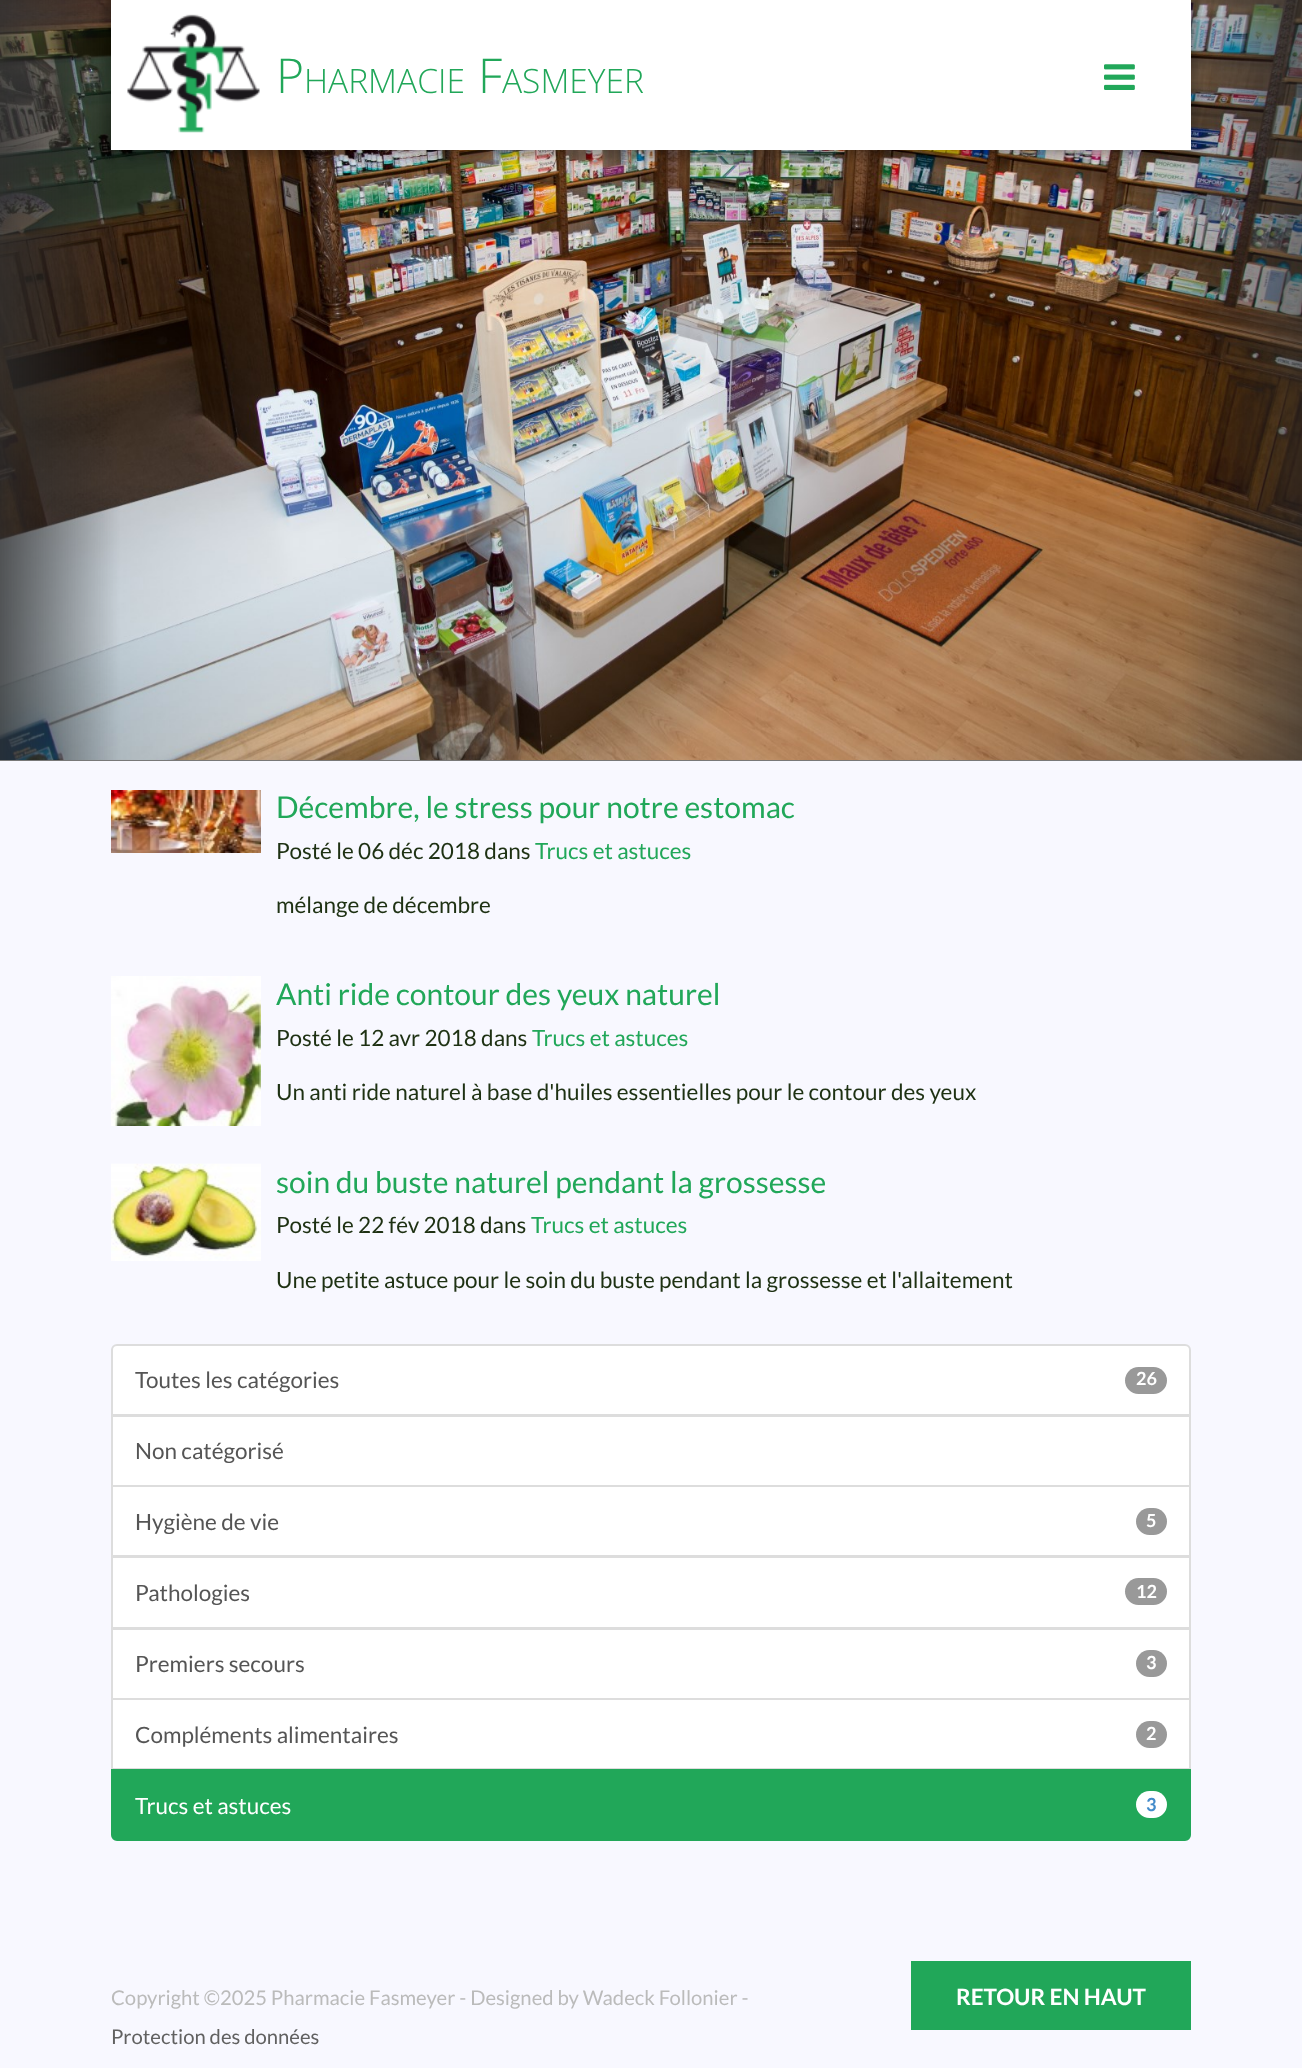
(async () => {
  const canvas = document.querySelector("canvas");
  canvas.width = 1302;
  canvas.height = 2068;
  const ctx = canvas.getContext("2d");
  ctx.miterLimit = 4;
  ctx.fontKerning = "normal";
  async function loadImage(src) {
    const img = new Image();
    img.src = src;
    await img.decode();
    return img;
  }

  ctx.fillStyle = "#f8f8ff";
  ctx.fillRect(0, 0, 1302, 2068);
  ctx.drawImage(await loadImage("img/1.png"), 0, 0, 1302, 760);
  ctx.fillStyle = "#787878";
  ctx.fillRect(0, 760, 1302, 1);
  ctx.fillStyle = "rgba(0, 0, 0, 0.3)";
  ctx.filter = "blur(6px)";
  ctx.beginPath();
  ctx.rect(105, -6, 1092, 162);
  ctx.fill();
  ctx.filter = "none";
  ctx.fillStyle = "#ffffff";
  ctx.fillRect(111, 0, 1080, 150);
  ctx.drawImage(await loadImage("img/2.png"), 127, 14, 133, 119);
  ctx.drawImage(await loadImage("img/3.png"), 1104, 64, 31, 26);
  ctx.drawImage(await loadImage("img/4.png"), 111, 790, 150, 63);
  ctx.drawImage(await loadImage("img/5.png"), 111, 976, 150, 150);
  ctx.drawImage(await loadImage("img/6.png"), 111, 1163, 150, 98);
  ctx.beginPath();
  ctx.roundRect(112, 1345, 1078, 70, [5, 5, 0, 0]);
  ctx.fill();
  ctx.strokeStyle = "#dddddd";
  ctx.lineWidth = 2;
  ctx.stroke();
  ctx.fillStyle = "#999999";
  ctx.beginPath();
  ctx.roundRect(1125, 1367, 42, 27, 13.5);
  ctx.fill();
  ctx.fillStyle = "#ffffff";
  ctx.beginPath();
  ctx.rect(112, 1416, 1078, 70);
  ctx.fill();
  ctx.stroke();
  ctx.beginPath();
  ctx.rect(112, 1486, 1078, 70);
  ctx.fill();
  ctx.stroke();
  ctx.fillStyle = "#999999";
  ctx.beginPath();
  ctx.roundRect(1136, 1508, 31, 27, 13.5);
  ctx.fill();
  ctx.fillStyle = "#ffffff";
  ctx.beginPath();
  ctx.rect(112, 1557, 1078, 71);
  ctx.fill();
  ctx.stroke();
  ctx.fillStyle = "#999999";
  ctx.beginPath();
  ctx.roundRect(1125, 1578, 42, 27, 13.5);
  ctx.fill();
  ctx.fillStyle = "#ffffff";
  ctx.beginPath();
  ctx.rect(112, 1629, 1078, 70);
  ctx.fill();
  ctx.stroke();
  ctx.fillStyle = "#999999";
  ctx.beginPath();
  ctx.roundRect(1136, 1650, 31, 27, 13.5);
  ctx.fill();
  ctx.fillStyle = "#ffffff";
  ctx.beginPath();
  ctx.rect(112, 1699, 1078, 70);
  ctx.fill();
  ctx.stroke();
  ctx.fillStyle = "#999999";
  ctx.beginPath();
  ctx.roundRect(1136, 1721, 31, 27, 13.5);
  ctx.fill();
  ctx.fillStyle = "#21a759";
  ctx.beginPath();
  ctx.roundRect(112, 1770, 1078, 70, [0, 0, 5, 5]);
  ctx.fill();
  ctx.strokeStyle = "#21a759";
  ctx.stroke();
  ctx.fillStyle = "#ffffff";
  ctx.beginPath();
  ctx.roundRect(1136, 1791, 31, 27, 13.5);
  ctx.fill();
  ctx.fillStyle = "#21a759";
  ctx.fillRect(911, 1961, 280, 69);
  ctx.font = "300 48px Open Sans";
  ctx.fillText("P", 276, 93);
  ctx.font = "300 33.5px Open Sans";
  ctx.fillText("HARMACIE", 304, 93);
  ctx.font = "300 48px Open Sans";
  ctx.fillText("F", 478, 93);
  ctx.font = "300 33.5px Open Sans";
  ctx.fillText("ASMEYER", 502, 93);
  ctx.font = "30px Lato";
  ctx.fillText("Décembre, le stress pour notre estomac", 276, 818);
  ctx.font = "22.5px Lato";
  ctx.fillStyle = "#1e3113";
  ctx.fillText("Posté le 06 déc 2018 dans", 276, 859);
  ctx.fillStyle = "#21a759";
  ctx.fillText("Trucs et astuces", 535, 859);
  ctx.fillStyle = "#1e3113";
  ctx.fillText("mélange de décembre", 276, 913);
  ctx.font = "30px Lato";
  ctx.fillStyle = "#21a759";
  ctx.fillText("Anti ride contour des yeux naturel", 276, 1005);
  ctx.font = "22.5px Lato";
  ctx.fillStyle = "#1e3113";
  ctx.fillText("Posté le 12 avr 2018 dans", 276, 1046);
  ctx.fillStyle = "#21a759";
  ctx.fillText("Trucs et astuces", 532, 1046);
  ctx.fillStyle = "#1e3113";
  ctx.fillText("Un anti ride naturel à base d'huiles essentielles pour le contour des yeux", 276, 1100);
  ctx.font = "30px Lato";
  ctx.fillStyle = "#21a759";
  ctx.fillText("soin du buste naturel pendant la grossesse", 276, 1193);
  ctx.font = "22.5px Lato";
  ctx.fillStyle = "#1e3113";
  ctx.fillText("Posté le 22 fév 2018 dans", 276, 1233);
  ctx.fillStyle = "#21a759";
  ctx.fillText("Trucs et astuces", 531, 1233);
  ctx.fillStyle = "#1e3113";
  ctx.fillText("Une petite astuce pour le soin du buste pendant la grossesse et l'allaitement", 276, 1288);
  ctx.fillStyle = "#555555";
  ctx.fillText("Toutes les catégories", 135, 1388);
  ctx.font = "bold 18px Lato";
  ctx.fillStyle = "#ffffff";
  ctx.fillText("26", 1136, 1385);
  ctx.font = "22.5px Lato";
  ctx.fillStyle = "#555555";
  ctx.fillText("Non catégorisé", 135, 1459);
  ctx.fillText("Hygiène de vie", 135, 1530);
  ctx.font = "bold 18px Lato";
  ctx.fillStyle = "#ffffff";
  ctx.fillText("5", 1146, 1527);
  ctx.font = "22.5px Lato";
  ctx.fillStyle = "#555555";
  ctx.fillText("Pathologies", 135, 1601);
  ctx.font = "bold 18px Lato";
  ctx.fillStyle = "#ffffff";
  ctx.fillText("12", 1136, 1598);
  ctx.font = "22.5px Lato";
  ctx.fillStyle = "#555555";
  ctx.fillText("Premiers secours", 135, 1672);
  ctx.font = "bold 18px Lato";
  ctx.fillStyle = "#ffffff";
  ctx.fillText("3", 1146, 1669);
  ctx.font = "22.5px Lato";
  ctx.fillStyle = "#555555";
  ctx.fillText("Compléments alimentaires", 135, 1743);
  ctx.font = "bold 18px Lato";
  ctx.fillStyle = "#ffffff";
  ctx.fillText("2", 1146, 1740);
  ctx.font = "22.5px Lato";
  ctx.fillText("Trucs et astuces", 135, 1814);
  ctx.font = "bold 18px Lato";
  ctx.fillStyle = "#428bca";
  ctx.fillText("3", 1146, 1811);
  ctx.font = "20.25px Lato";
  ctx.fillStyle = "#bbbbbb";
  ctx.fillText("Copyright ©2025 Pharmacie Fasmeyer - Designed by Wadeck Follonier -", 111, 2005);
  ctx.fillStyle = "#616161";
  ctx.fillText("Protection des données", 111, 2044);
  ctx.font = "bold 22.5px Lato";
  ctx.fillStyle = "#ffffff";
  ctx.fillText("RETOUR EN HAUT", 956, 2005);
})();
